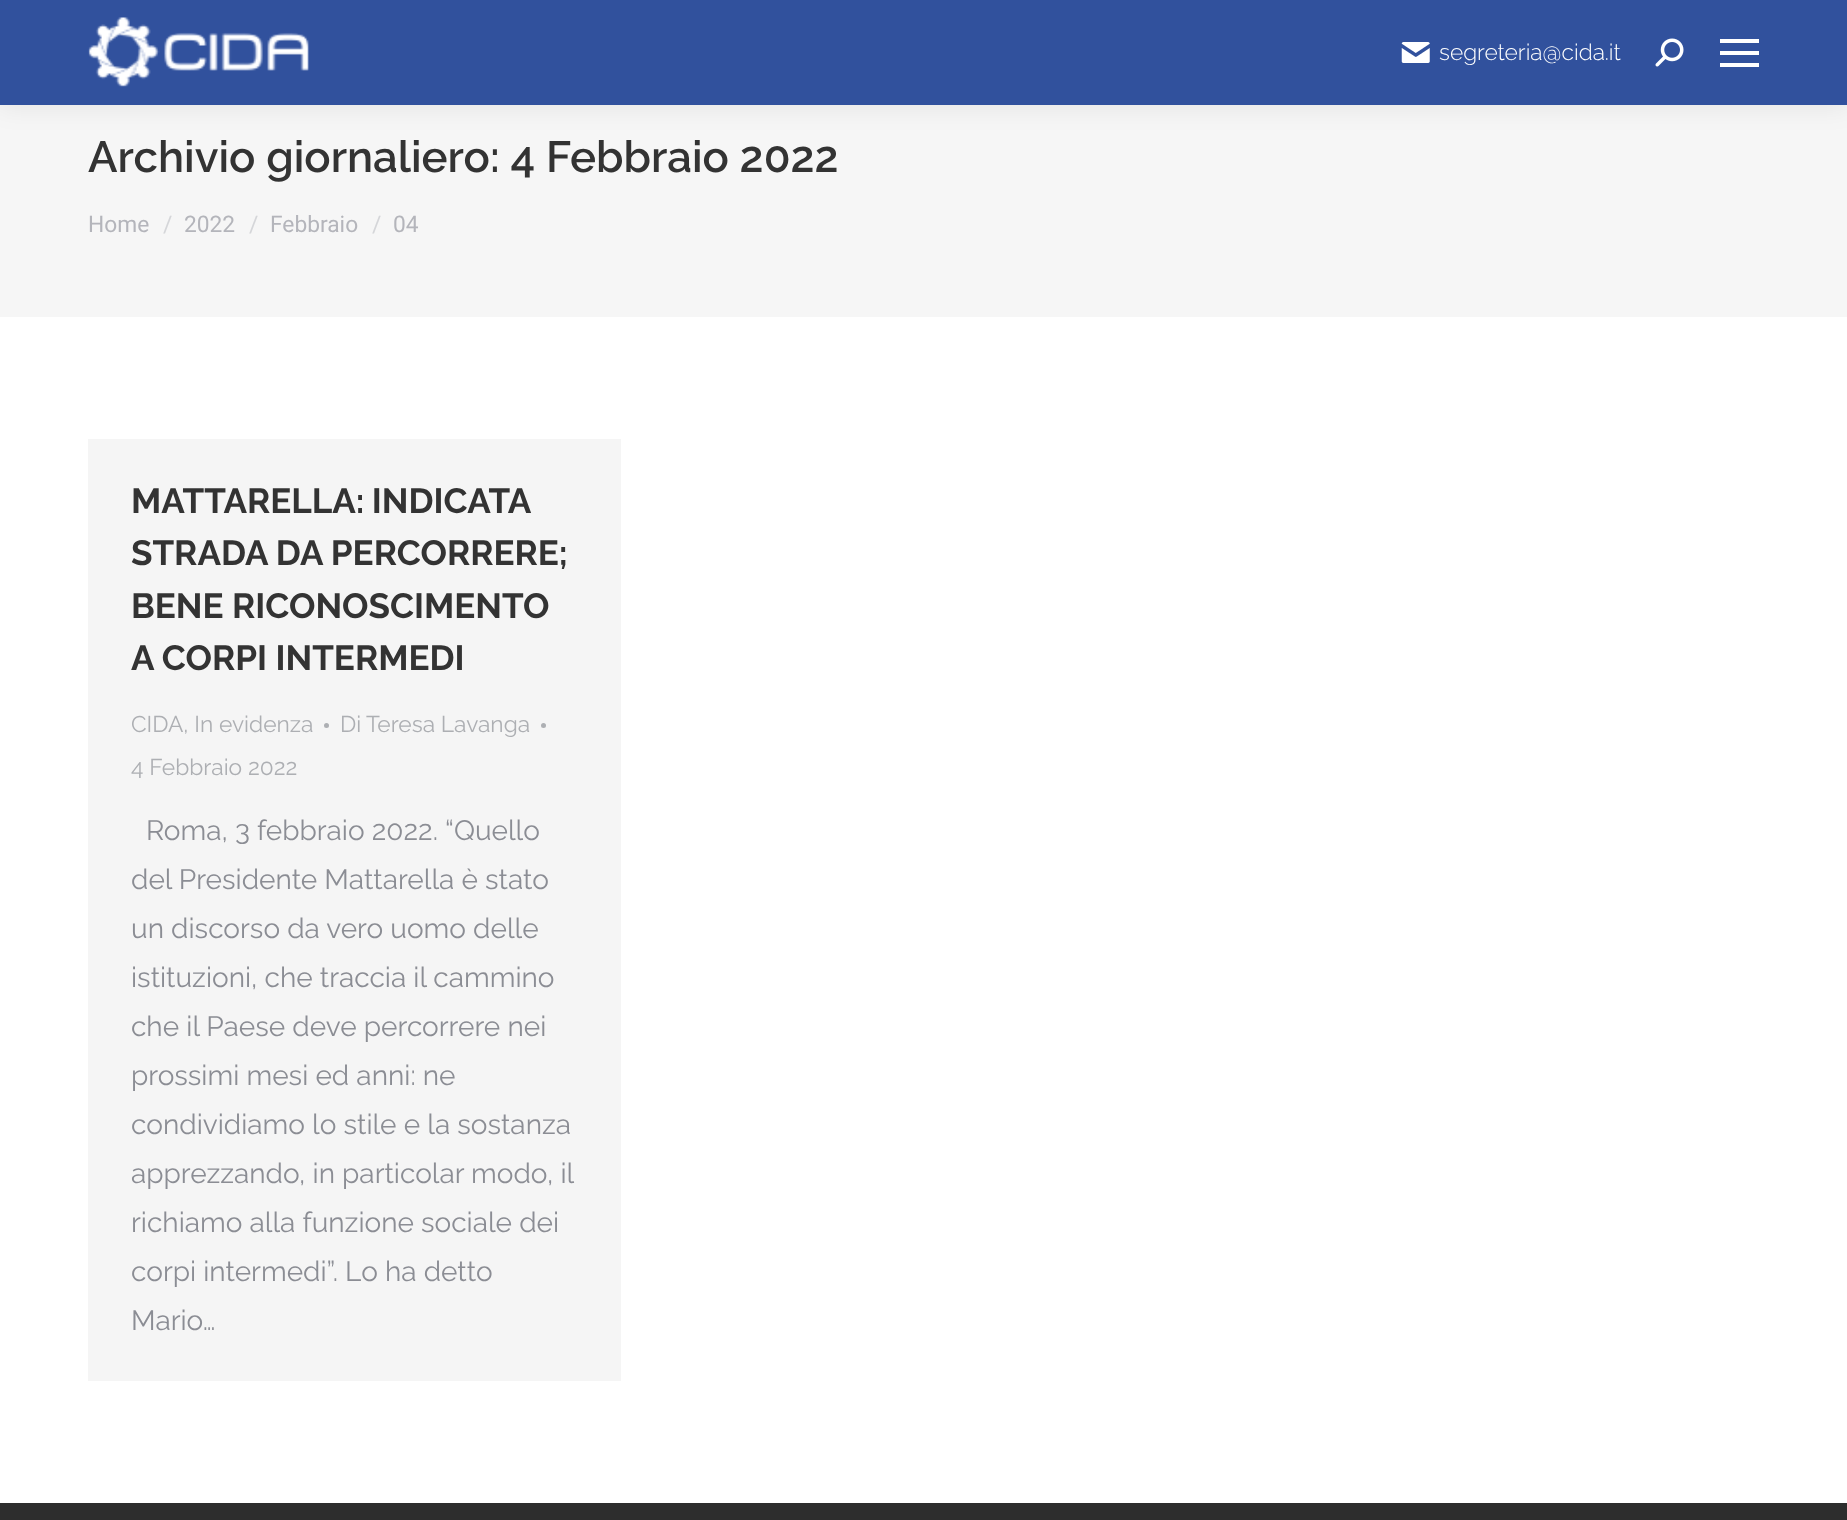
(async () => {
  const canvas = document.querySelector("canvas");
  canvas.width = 1847;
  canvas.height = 1520;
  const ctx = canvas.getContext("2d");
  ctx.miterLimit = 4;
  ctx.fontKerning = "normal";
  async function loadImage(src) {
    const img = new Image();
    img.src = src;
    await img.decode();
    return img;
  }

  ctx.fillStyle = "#ffffff";
  ctx.fillRect(0, 0, 1847, 1520);
  ctx.fillStyle = "#f6f6f6";
  ctx.fillRect(0, 105, 1847, 212);
  ctx.fillStyle = "rgba(0, 0, 0, 0.07)";
  ctx.filter = "blur(13px)";
  ctx.beginPath();
  ctx.rect(-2, -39, 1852, 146);
  ctx.fill();
  ctx.filter = "none";
  ctx.fillStyle = "#31519d";
  ctx.fillRect(0, 0, 1847, 105);
  ctx.drawImage(await loadImage("img/1.png"), 88, 17, 221, 70);
  ctx.drawImage(await loadImage("img/2.png"), 1401, 42, 29, 21);
  ctx.drawImage(await loadImage("img/3.png"), 1655, 38, 29, 29);
  for (const [x, y, w, h, color] of [
    [1720, 39, 39, 4, "#ffffff"],
    [1720, 51, 39, 4, "#ffffff"],
    [1720, 63, 39, 4, "#ffffff"],
    [88, 439, 533, 942, "#f5f5f5"],
  ]) {
    ctx.fillStyle = color;
    ctx.fillRect(x, y, w, h);
  }
  ctx.fillStyle = "#adafb3";
  ctx.beginPath();
  ctx.arc(326.5, 725.5, 2.5, 0, Math.PI * 2);
  ctx.fill();
  ctx.beginPath();
  ctx.arc(543.5, 725.5, 2.5, 0, Math.PI * 2);
  ctx.fill();
  ctx.fillStyle = "#2d2d2d";
  ctx.fillRect(0, 1503, 1847, 17);
  ctx.font = "300 22.75px Raleway";
  ctx.fillStyle = "#ffffff";
  ctx.fillText("segreteria@cida.it", 1439, 60);
  ctx.font = "600 43.75px Raleway";
  ctx.fillStyle = "#333333";
  ctx.fillText("Archivio giornaliero: 4 Febbraio 2022", 88, 172);
  ctx.font = "22.75px Roboto";
  ctx.fillStyle = "#b4b5bb";
  ctx.fillText("Home", 88, 232);
  ctx.fillStyle = "#d5d6d9";
  ctx.fillText("/", 163, 232);
  ctx.fillStyle = "#b4b5bb";
  ctx.fillText("2022", 184, 232);
  ctx.fillStyle = "#d5d6d9";
  ctx.fillText("/", 249, 232);
  ctx.fillStyle = "#b4b5bb";
  ctx.fillText("Febbraio", 270, 232);
  ctx.fillStyle = "#d5d6d9";
  ctx.fillText("/", 372, 232);
  ctx.fillStyle = "#b4b5bb";
  ctx.fillText("04", 393, 232);
  ctx.wordSpacing = "-1px";
  ctx.font = "bold 35px Raleway";
  ctx.fillStyle = "#333333";
  ctx.fillText("MATTARELLA: INDICATA", 131, 513);
  ctx.wordSpacing = "0px";
  for (const [text, x, y] of [
    ["STRADA DA PERCORRERE;", 131, 565],
    ["BENE RICONOSCIMENTO", 131, 618],
    ["A CORPI INTERMEDI", 131, 670],
  ]) {
    ctx.fillText(text, x, y);
  }
  ctx.font = "22.75px Raleway";
  ctx.fillStyle = "#adafb3";
  for (const [text, x, y] of [
    ["CIDA, In evidenza", 131, 732],
    ["Di", 340, 732],
    ["Teresa Lavanga", 366, 732],
    ["4 Febbraio 2022", 131, 775],
  ]) {
    ctx.fillText(text, x, y);
  }
  ctx.font = "28px Raleway";
  ctx.fillStyle = "#8b8d94";
  for (const [text, x, y] of [
    ["Roma, 3 febbraio 2022. “Quello", 146, 840],
    ["del Presidente Mattarella è stato", 131, 889],
    ["un discorso da vero uomo delle", 131, 938],
    ["istituzioni, che traccia il cammino", 131, 987],
    ["che il Paese deve percorrere nei", 131, 1036],
    ["prossimi mesi ed anni: ne", 131, 1085],
    ["condividiamo lo stile e la sostanza", 131, 1134],
    ["apprezzando, in particolar modo, il", 131, 1183],
    ["richiamo alla funzione sociale dei", 131, 1232],
    ["corpi intermedi”. Lo ha detto", 131, 1281],
    ["Mario…", 131, 1330],
  ]) {
    ctx.fillText(text, x, y);
  }
})();
